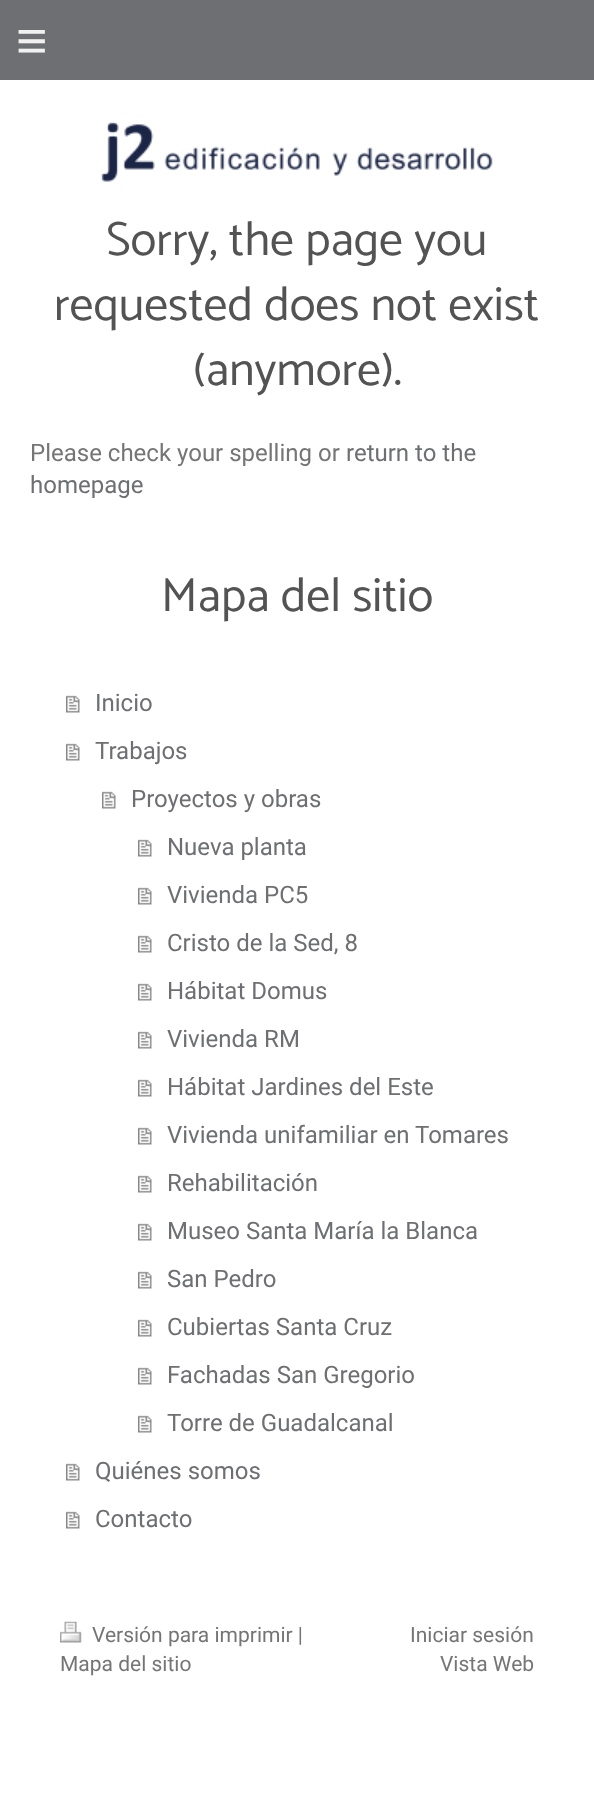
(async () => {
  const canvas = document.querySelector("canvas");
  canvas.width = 594;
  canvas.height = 1813;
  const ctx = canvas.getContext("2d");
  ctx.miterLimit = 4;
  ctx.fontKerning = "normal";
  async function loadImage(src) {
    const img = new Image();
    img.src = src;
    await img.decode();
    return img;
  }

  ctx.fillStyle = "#ffffff";
  ctx.fillRect(0, 0, 594, 1813);
  ctx.fillStyle = "#6e6f73";
  ctx.fillRect(0, 0, 594, 80);
  ctx.drawImage(await loadImage("img/1.png"), 101, 122, 392, 60);
  ctx.drawImage(await loadImage("img/2.png"), 66, 695, 14, 18);
  ctx.drawImage(await loadImage("img/2.png"), 66, 743, 14, 18);
  ctx.drawImage(await loadImage("img/2.png"), 102, 791, 14, 18);
  ctx.drawImage(await loadImage("img/2.png"), 138, 839, 14, 18);
  ctx.drawImage(await loadImage("img/2.png"), 138, 887, 14, 18);
  ctx.drawImage(await loadImage("img/2.png"), 138, 935, 14, 18);
  ctx.drawImage(await loadImage("img/2.png"), 138, 983, 14, 18);
  ctx.drawImage(await loadImage("img/2.png"), 138, 1031, 14, 18);
  ctx.drawImage(await loadImage("img/2.png"), 138, 1079, 14, 18);
  ctx.drawImage(await loadImage("img/2.png"), 138, 1127, 14, 18);
  ctx.drawImage(await loadImage("img/2.png"), 138, 1175, 14, 18);
  ctx.drawImage(await loadImage("img/2.png"), 138, 1223, 14, 18);
  ctx.drawImage(await loadImage("img/2.png"), 138, 1271, 14, 18);
  ctx.drawImage(await loadImage("img/2.png"), 138, 1319, 14, 18);
  ctx.drawImage(await loadImage("img/2.png"), 138, 1367, 14, 18);
  ctx.drawImage(await loadImage("img/2.png"), 138, 1415, 14, 18);
  ctx.drawImage(await loadImage("img/2.png"), 66, 1463, 14, 18);
  ctx.drawImage(await loadImage("img/2.png"), 66, 1511, 14, 18);
  ctx.drawImage(await loadImage("img/3.png"), 60, 1621, 22, 22);
  ctx.letterSpacing = "16px";
  ctx.font = "54px Liberation Sans";
  ctx.fillStyle = "#f1f1f1";
  ctx.fillText("≡", 16, 59);
  ctx.letterSpacing = "0px";
  ctx.font = "48px Catamaran";
  ctx.fillStyle = "#535353";
  for (const [text, x, y] of [
    ["Sorry, the page you", 106, 255],
    ["requested does not exist", 54, 320],
    ["(anymore).", 193, 385],
  ]) {
    ctx.fillText(text, x, y);
  }
  ctx.font = "24px Roboto";
  ctx.fillStyle = "#757575";
  ctx.fillText("Please check your spelling or", 30, 461);
  ctx.fillStyle = "#6e6f73";
  ctx.fillText("return to the", 346, 461);
  ctx.fillText("homepage", 30, 493);
  ctx.font = "48px Catamaran";
  ctx.fillStyle = "#535353";
  ctx.fillText("Mapa del sitio", 161, 611);
  ctx.font = "24px Roboto";
  ctx.fillStyle = "#6e6f73";
  for (const [text, x, y] of [
    ["Inicio", 95, 711],
    ["Trabajos", 95, 759],
    ["Proyectos y obras", 131, 807],
    ["Nueva planta", 167, 855],
    ["Vivienda PC5", 167, 903],
    ["Cristo de la Sed, 8", 167, 951],
    ["Hábitat Domus", 167, 999],
    ["Vivienda RM", 167, 1047],
    ["Hábitat Jardines del Este", 167, 1095],
    ["Vivienda unifamiliar en Tomares", 167, 1143],
    ["Rehabilitación", 167, 1191],
    ["Museo Santa María la Blanca", 167, 1239],
    ["San Pedro", 167, 1287],
    ["Cubiertas Santa Cruz", 167, 1335],
    ["Fachadas San Gregorio", 167, 1383],
    ["Torre de Guadalcanal", 167, 1431],
    ["Quiénes somos", 95, 1479],
    ["Contacto", 95, 1527],
  ]) {
    ctx.fillText(text, x, y);
  }
  ctx.font = "21px Roboto";
  ctx.fillStyle = "#757575";
  for (const [text, x, y] of [
    ["Versión para imprimir |", 92, 1642],
    ["Mapa del sitio", 60, 1671],
    ["Iniciar sesión", 410, 1642],
    ["Vista Web", 440, 1671],
  ]) {
    ctx.fillText(text, x, y);
  }
})();
